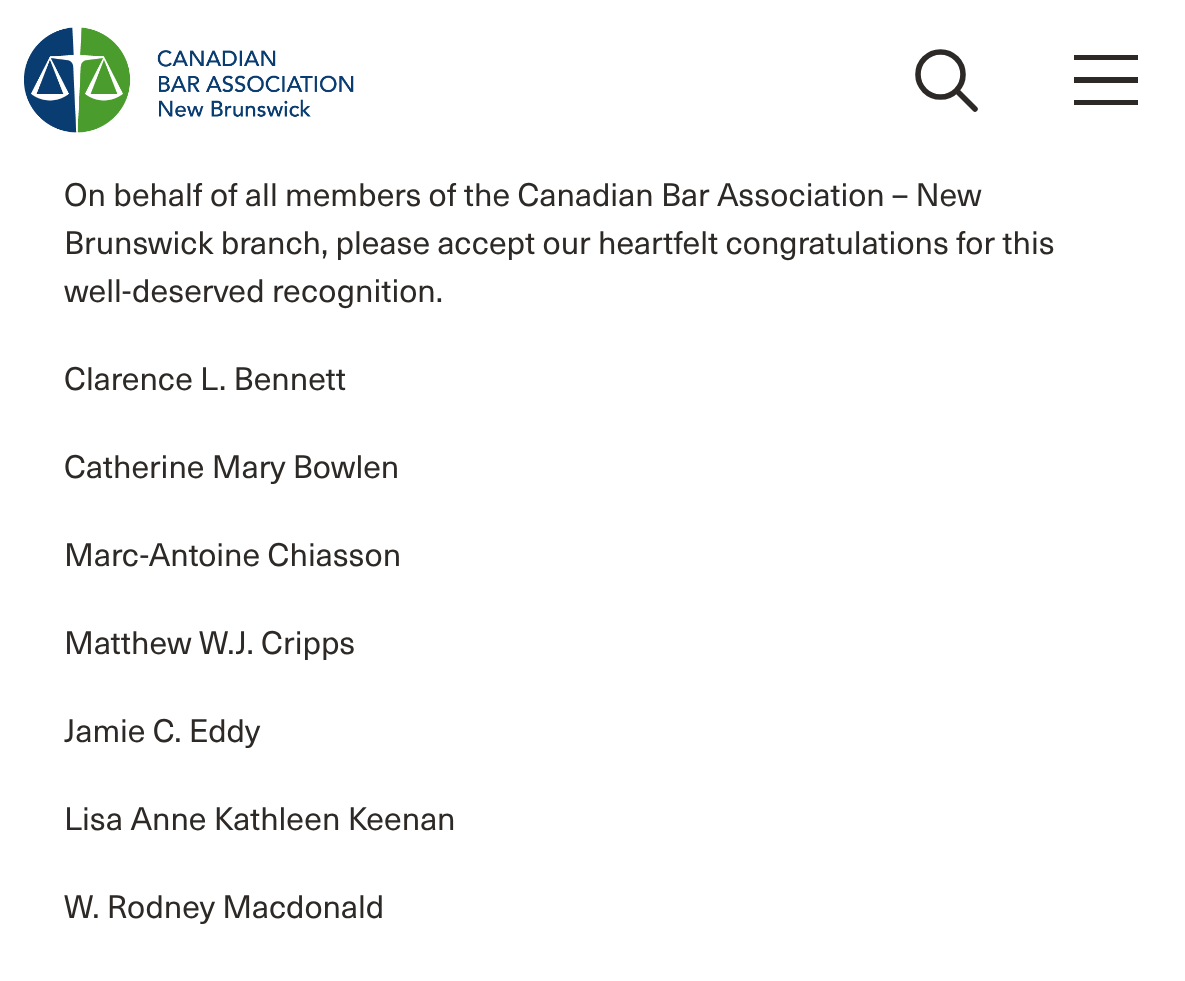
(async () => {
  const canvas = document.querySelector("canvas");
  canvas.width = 1185;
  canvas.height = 981;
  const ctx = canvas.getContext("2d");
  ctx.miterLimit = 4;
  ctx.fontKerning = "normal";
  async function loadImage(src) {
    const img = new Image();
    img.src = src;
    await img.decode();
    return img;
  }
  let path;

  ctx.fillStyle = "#ffffff";
  ctx.fillRect(0, 0, 1185, 981);
  ctx.drawImage(await loadImage("img/1.png"), 24, 27, 330, 106);
  ctx.beginPath();
  ctx.arc(940.5, 74.5, 22.5, 0, Math.PI * 2);
  ctx.strokeStyle = "#2d2926";
  ctx.lineWidth = 5.6;
  ctx.stroke();
  path = new Path2D("M975 109L957 91");
  ctx.lineCap = "round";
  ctx.lineJoin = "round";
  ctx.stroke(path);
  for (const [x, y, w, h, color] of [
    [1074, 55, 64, 5, "#2d2926"],
    [1074, 77, 64, 6, "#2d2926"],
    [1074, 100, 64, 5, "#2d2926"],
  ]) {
    ctx.fillStyle = color;
    ctx.fillRect(x, y, w, h);
  }
  ctx.font = "32px 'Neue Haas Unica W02'";
  for (const [text, x, y] of [
    ["On behalf of all members of the Canadian Bar Association – New", 64, 206],
    ["Brunswick branch, please accept our heartfelt congratulations for this", 64, 254],
    ["well-deserved recognition.", 64, 302],
    ["Clarence L. Bennett", 64, 390],
    ["Catherine Mary Bowlen", 64, 478],
    ["Marc-Antoine Chiasson", 64, 566],
    ["Matthew W.J. Cripps", 64, 654],
    ["Jamie C. Eddy", 64, 742],
    ["Lisa Anne Kathleen Keenan", 64, 830],
    ["W. Rodney Macdonald", 64, 918],
  ]) {
    ctx.fillText(text, x, y);
  }
})();
